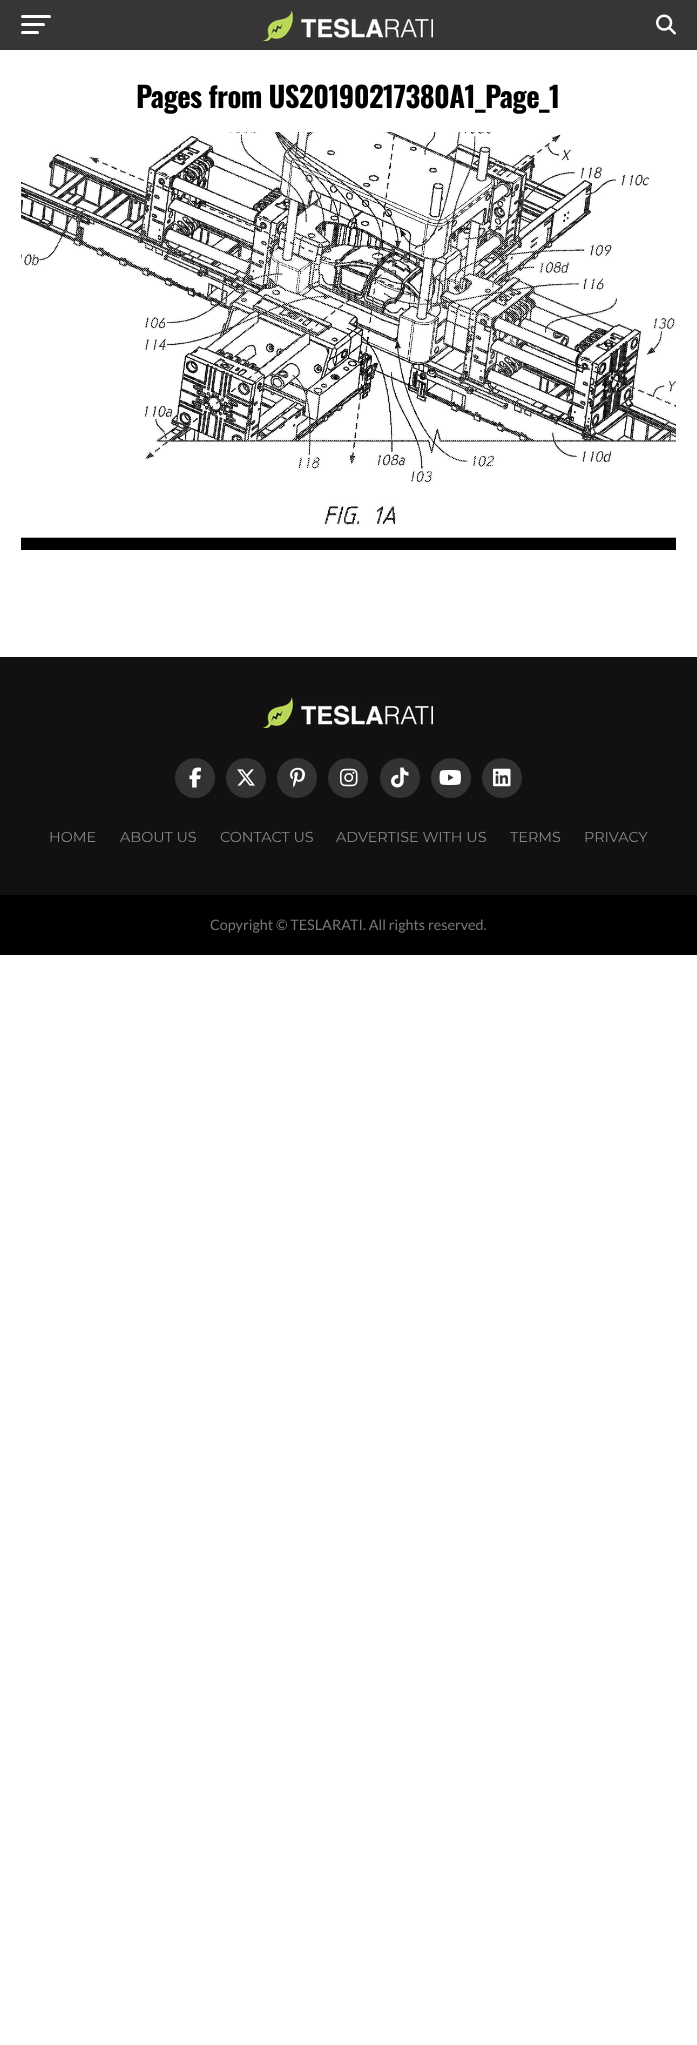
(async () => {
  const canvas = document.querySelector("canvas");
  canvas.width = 697;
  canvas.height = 2045;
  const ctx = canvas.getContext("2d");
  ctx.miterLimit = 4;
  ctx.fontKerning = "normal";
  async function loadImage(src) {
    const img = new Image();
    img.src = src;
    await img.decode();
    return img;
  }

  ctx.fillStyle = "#ffffff";
  ctx.fillRect(0, 0, 697, 2045);
  ctx.fillStyle = "#363636";
  ctx.fillRect(0, 0, 697, 50);
  ctx.fillStyle = "#ffffff";
  ctx.beginPath();
  ctx.roundRect(21, 15, 30, 3, 1.5);
  ctx.fill();
  ctx.beginPath();
  ctx.roundRect(21, 23, 24, 3, 1.5);
  ctx.fill();
  ctx.beginPath();
  ctx.roundRect(21, 31, 18, 3, 1.5);
  ctx.fill();
  ctx.drawImage(await loadImage("img/1.png"), 263, 10, 170, 31);
  ctx.drawImage(await loadImage("img/2.png"), 656, 14, 20, 21);
  ctx.drawImage(await loadImage("img/3.png"), 21, 132, 655, 418);
  ctx.fillStyle = "#111111";
  ctx.fillRect(0, 657, 697, 238);
  ctx.drawImage(await loadImage("img/4.png"), 263, 697, 170, 31);
  ctx.fillStyle = "#333333";
  ctx.beginPath();
  ctx.arc(195, 778, 20, 0, Math.PI * 2);
  ctx.fill();
  ctx.drawImage(await loadImage("img/5.png"), 189, 767, 12, 21);
  ctx.beginPath();
  ctx.arc(246, 778, 20, 0, Math.PI * 2);
  ctx.fill();
  ctx.drawImage(await loadImage("img/6.png"), 237, 769, 18, 17);
  ctx.beginPath();
  ctx.arc(297, 778, 20, 0, Math.PI * 2);
  ctx.fill();
  ctx.drawImage(await loadImage("img/7.png"), 290, 767, 15, 21);
  ctx.beginPath();
  ctx.arc(348, 778, 20, 0, Math.PI * 2);
  ctx.fill();
  ctx.drawImage(await loadImage("img/8.png"), 340, 768, 18, 19);
  ctx.beginPath();
  ctx.arc(400, 778, 20, 0, Math.PI * 2);
  ctx.fill();
  ctx.drawImage(await loadImage("img/9.png"), 391, 767, 18, 21);
  ctx.beginPath();
  ctx.arc(451, 778, 20, 0, Math.PI * 2);
  ctx.fill();
  ctx.drawImage(await loadImage("img/10.png"), 439, 770, 22, 15);
  ctx.beginPath();
  ctx.arc(502, 778, 20, 0, Math.PI * 2);
  ctx.fill();
  ctx.drawImage(await loadImage("img/11.png"), 493, 768, 18, 19);
  ctx.fillStyle = "#000000";
  ctx.fillRect(0, 895, 697, 60);
  ctx.letterSpacing = "-0.6px";
  ctx.font = "bold 28.75px Oswald";
  ctx.fillText("Pages from US20190217380A1_Page_1", 136, 108);
  ctx.letterSpacing = "0px";
  ctx.font = "14.4px Montserrat";
  ctx.fillStyle = "#888888";
  for (const [text, x, y] of [
    ["HOME", 49, 842],
    ["ABOUT US", 120, 842],
    ["CONTACT US", 220, 842],
    ["ADVERTISE WITH US", 336, 842],
    ["TERMS", 510, 842],
    ["PRIVACY", 584, 842],
  ]) {
    ctx.fillText(text, x, y);
  }
  ctx.font = "14.4px Lato";
  ctx.fillStyle = "#777777";
  ctx.fillText("Copyright © TESLARATI. All rights reserved.", 210, 930);
})();
